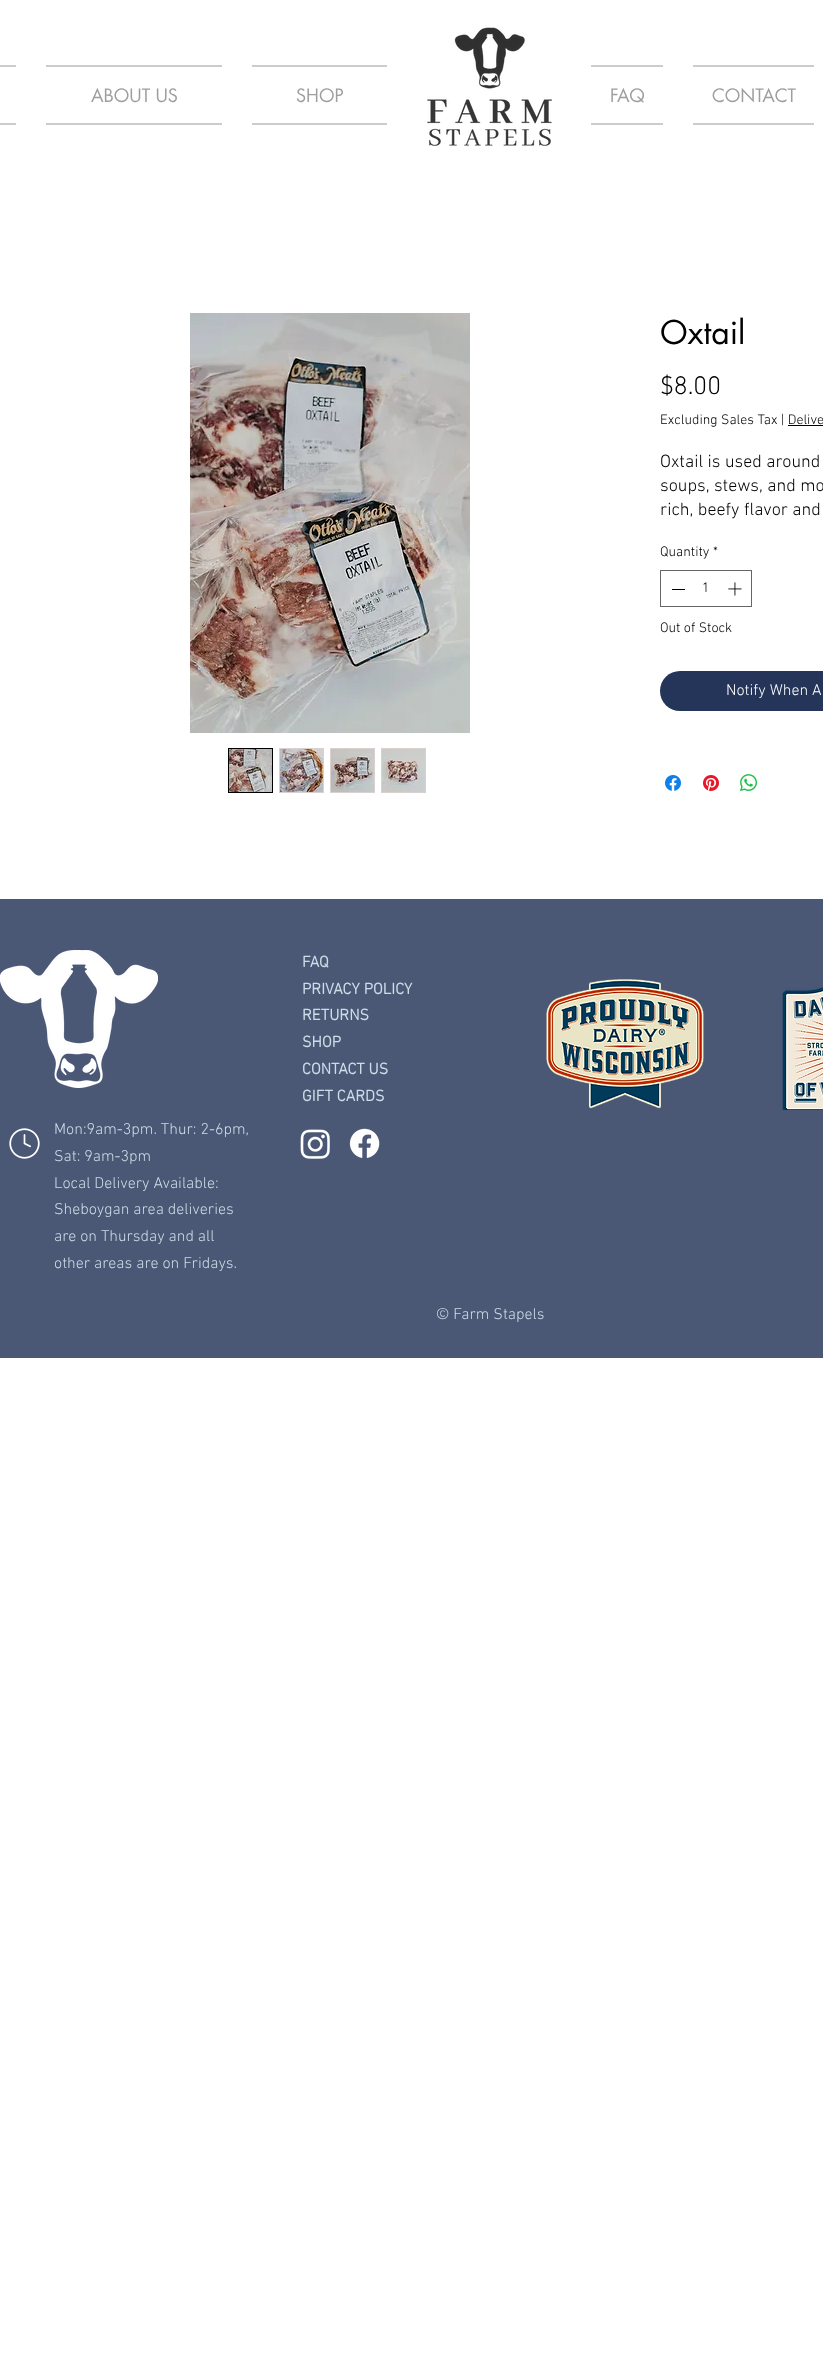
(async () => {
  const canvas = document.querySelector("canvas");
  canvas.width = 823;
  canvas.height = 2361;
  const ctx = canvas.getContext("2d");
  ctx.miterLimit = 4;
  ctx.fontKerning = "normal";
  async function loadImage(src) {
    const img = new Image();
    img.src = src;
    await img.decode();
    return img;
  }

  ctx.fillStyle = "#ffffff";
  ctx.fillRect(0, 0, 823, 2361);
  for (const [x, y, w, h, color] of [
    [0, 65, 16, 2, "#cccccc"],
    [0, 123, 16, 2, "#cccccc"],
    [46, 65, 176, 2, "#cccccc"],
    [46, 123, 176, 2, "#cccccc"],
    [252, 65, 135, 2, "#cccccc"],
    [252, 123, 135, 2, "#cccccc"],
  ]) {
    ctx.fillStyle = color;
    ctx.fillRect(x, y, w, h);
  }
  ctx.drawImage(await loadImage("img/1.png"), 427, 27, 125, 119);
  for (const [x, y, w, h, color] of [
    [591, 65, 72, 2, "#cccccc"],
    [591, 123, 72, 2, "#cccccc"],
    [693, 65, 121, 2, "#cccccc"],
    [693, 123, 121, 2, "#cccccc"],
  ]) {
    ctx.fillStyle = color;
    ctx.fillRect(x, y, w, h);
  }
  ctx.drawImage(await loadImage("img/2.png"), 190, 313, 280, 420);
  ctx.strokeStyle = "#000000";
  ctx.strokeRect(228.5, 748.5, 44, 44);
  ctx.drawImage(await loadImage("img/3.png"), 229, 749, 43, 43);
  ctx.fillStyle = "#dad1ce";
  ctx.fillRect(279, 748, 45, 45);
  ctx.drawImage(await loadImage("img/4.png"), 280, 749, 43, 43);
  ctx.fillRect(330, 748, 45, 45);
  ctx.drawImage(await loadImage("img/5.png"), 331, 749, 43, 43);
  ctx.fillRect(381, 748, 45, 45);
  ctx.drawImage(await loadImage("img/6.png"), 382, 749, 43, 43);
  ctx.fillStyle = "#000000";
  ctx.fillRect(788, 425, 35, 1);
  ctx.strokeStyle = "#666666";
  ctx.strokeRect(660.5, 570.5, 91, 36);
  ctx.fillRect(672, 589, 13, 1);
  ctx.drawImage(await loadImage("img/7.png"), 728, 582, 14, 14);
  ctx.fillStyle = "#253559";
  ctx.beginPath();
  ctx.roundRect(660, 671, 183, 40, 20);
  ctx.fill();
  ctx.drawImage(await loadImage("img/8.png"), 665, 775, 16, 16);
  ctx.drawImage(await loadImage("img/9.png"), 703, 775, 16, 16);
  ctx.drawImage(await loadImage("img/10.png"), 740, 774, 17, 17);
  ctx.fillStyle = "#4a5775";
  ctx.fillRect(0, 899, 823, 459);
  ctx.drawImage(await loadImage("img/11.png"), 0, 950, 158, 138);
  ctx.drawImage(await loadImage("img/12.png"), 546, 979, 158, 130);
  ctx.drawImage(await loadImage("img/13.png"), 782, 987, 41, 123);
  ctx.drawImage(await loadImage("img/14.png"), 9, 1128, 31, 31);
  ctx.drawImage(await loadImage("img/15.png"), 300, 1129, 30, 30);
  ctx.drawImage(await loadImage("img/16.png"), 349, 1128, 31, 30);
  ctx.font = "18px futura";
  ctx.fillStyle = "#9e9e9e";
  for (const [text, x, y] of [
    ["ABOUT US", 91, 102],
    ["SHOP", 296, 102],
    ["FAQ", 610, 102],
    ["CONTACT", 712, 102],
  ]) {
    ctx.fillText(text, x, y);
  }
  ctx.font = "32px futura";
  ctx.fillStyle = "#000000";
  ctx.fillText("Oxtail", 660, 344);
  ctx.font = "300 26px 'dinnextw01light'";
  ctx.fillText("$8.00", 660, 394);
  ctx.font = "300 14px 'dinnextw01light'";
  ctx.fillText("Excluding Sales Tax | Delive", 660, 424);
  ctx.font = "300 18px 'dinnextw01light'";
  for (const [text, x, y] of [
    ["Oxtail is used around", 660, 467],
    ["soups, stews, and mo", 660, 491],
    ["rich, beefy flavor and", 660, 515],
  ]) {
    ctx.fillText(text, x, y);
  }
  ctx.font = "300 14px 'dinnextw01light'";
  for (const [text, x, y] of [
    ["Quantity", 660, 556],
    ["*", 713, 556],
    ["1", 702, 592],
    ["Out of Stock", 660, 632],
  ]) {
    ctx.fillText(text, x, y);
  }
  ctx.font = "300 16px 'dinnextw01light'";
  ctx.fillStyle = "#ffffff";
  ctx.fillText("Notify When A", 726, 695);
  ctx.font = "bold 16px 'dinnextw01light'";
  ctx.fillStyle = "#cddce7";
  for (const [text, x, y] of [
    ["FAQ", 302, 967],
    ["PRIVACY POLICY", 302, 994],
    ["RETURNS", 302, 1020],
    ["SHOP", 302, 1047],
    ["CONTACT US", 302, 1074],
    ["GIFT CARDS", 302, 1101],
  ]) {
    ctx.fillText(text, x, y);
  }
  ctx.font = "300 16px 'dinnextw01light'";
  for (const [text, x, y] of [
    ["Mon:9am-3pm. Thur: 2-6pm,", 54, 1134],
    ["Sat: 9am-3pm", 54, 1161],
    ["Local Delivery Available:", 54, 1188],
    ["Sheboygan area deliveries", 54, 1214],
    ["are on Thursday and all", 54, 1241],
    ["other areas are on Fridays.", 54, 1268],
    ["© Farm Stapels", 436, 1319],
  ]) {
    ctx.fillText(text, x, y);
  }
})();
